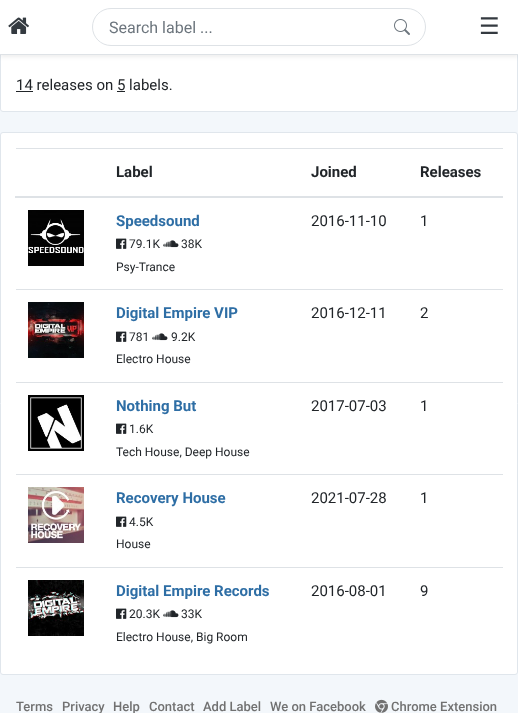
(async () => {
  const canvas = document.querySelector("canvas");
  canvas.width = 518;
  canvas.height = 713;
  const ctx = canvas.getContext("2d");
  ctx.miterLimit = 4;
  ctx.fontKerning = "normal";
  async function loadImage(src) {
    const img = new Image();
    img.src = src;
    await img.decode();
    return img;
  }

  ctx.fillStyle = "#f3f7fb";
  ctx.fillRect(0, 0, 518, 713);
  ctx.fillStyle = "#ffffff";
  ctx.beginPath();
  ctx.roundRect(0.5, -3.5, 517, 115, 2.5);
  ctx.fill();
  ctx.strokeStyle = "#e0e6ec";
  ctx.stroke();
  ctx.fillStyle = "rgba(0, 0, 0, 0.07)";
  ctx.filter = "blur(2px)";
  ctx.beginPath();
  ctx.rect(0, 2, 518, 55);
  ctx.fill();
  ctx.filter = "none";
  ctx.fillStyle = "#ffffff";
  ctx.fillRect(0, 0, 518, 54);
  ctx.fillStyle = "#dee2e6";
  ctx.fillRect(0, 54, 518, 1);
  ctx.drawImage(await loadImage("img/1.png"), 8, 17, 21, 17);
  ctx.beginPath();
  ctx.roundRect(92.5, 8.5, 333, 37, 18.5);
  ctx.strokeStyle = "#dee2e6";
  ctx.stroke();
  ctx.drawImage(await loadImage("img/2.png"), 394, 19, 16, 16);
  ctx.fillStyle = "#212529";
  ctx.fillRect(16, 91, 17, 1);
  ctx.fillRect(117, 91, 8, 1);
  ctx.fillStyle = "#ffffff";
  ctx.beginPath();
  ctx.roundRect(0.5, 132.5, 517, 542, 2.5);
  ctx.fill();
  ctx.strokeStyle = "#e0e6ec";
  ctx.stroke();
  ctx.fillStyle = "#dee2e6";
  ctx.fillRect(16, 148, 487, 1);
  ctx.fillRect(15, 196, 488, 2);
  ctx.drawImage(await loadImage("img/3.png"), 28, 210, 56, 56);
  ctx.drawImage(await loadImage("img/4.png"), 116, 238, 11, 11);
  ctx.drawImage(await loadImage("img/5.png"), 163, 240, 16, 8);
  ctx.drawImage(await loadImage("img/6.png"), 28, 302, 56, 56);
  ctx.drawImage(await loadImage("img/4.png"), 116, 331, 11, 11);
  ctx.drawImage(await loadImage("img/5.png"), 152, 333, 16, 8);
  ctx.fillRect(16, 289, 487, 1);
  ctx.drawImage(await loadImage("img/7.png"), 28, 395, 56, 56);
  ctx.drawImage(await loadImage("img/4.png"), 116, 423, 11, 11);
  ctx.fillRect(16, 382, 487, 1);
  ctx.drawImage(await loadImage("img/8.png"), 28, 487, 56, 56);
  ctx.drawImage(await loadImage("img/4.png"), 116, 516, 11, 11);
  ctx.fillRect(16, 474, 487, 1);
  ctx.drawImage(await loadImage("img/9.png"), 28, 580, 56, 56);
  ctx.drawImage(await loadImage("img/4.png"), 116, 608, 11, 11);
  ctx.drawImage(await loadImage("img/5.png"), 163, 610, 16, 8);
  ctx.fillRect(16, 567, 487, 1);
  ctx.drawImage(await loadImage("img/10.png"), 375, 699, 13, 14);
  ctx.font = "16px Roboto";
  ctx.fillStyle = "#6c757d";
  ctx.fillText("Search label ...", 109, 33);
  ctx.font = "23px DejaVu Sans";
  ctx.fillStyle = "#343a40";
  ctx.fillText("☰", 479, 34);
  ctx.font = "15px Roboto";
  ctx.fillStyle = "#212529";
  ctx.fillText("14 releases on 5 labels.", 16, 90);
  ctx.font = "bold 15px Roboto";
  for (const [text, x, y] of [
    ["Label", 116, 177],
    ["Joined", 311, 177],
    ["Releases", 420, 177],
  ]) {
    ctx.fillText(text, x, y);
  }
  ctx.fillStyle = "#2e6ea5";
  ctx.fillText("Speedsound", 116, 226);
  ctx.font = "12px Roboto";
  ctx.fillStyle = "#212529";
  for (const [text, x, y] of [
    ["79.1K", 129, 248],
    ["38K", 181, 248],
    ["Psy-Trance", 116, 271],
  ]) {
    ctx.fillText(text, x, y);
  }
  ctx.font = "15px Roboto";
  ctx.fillText("2016-11-10", 311, 226);
  ctx.fillText("1", 420, 226);
  ctx.font = "bold 15px Roboto";
  ctx.fillStyle = "#2e6ea5";
  ctx.fillText("Digital Empire VIP", 116, 318);
  ctx.font = "12px Roboto";
  ctx.fillStyle = "#212529";
  for (const [text, x, y] of [
    ["781", 129, 341],
    ["9.2K", 171, 341],
    ["Electro House", 116, 363],
  ]) {
    ctx.fillText(text, x, y);
  }
  ctx.font = "15px Roboto";
  ctx.fillText("2016-12-11", 311, 318);
  ctx.fillText("2", 420, 318);
  ctx.font = "bold 15px Roboto";
  ctx.fillStyle = "#2e6ea5";
  ctx.fillText("Nothing But", 116, 411);
  ctx.font = "12px Roboto";
  ctx.fillStyle = "#212529";
  ctx.fillText("1.6K", 129, 433);
  ctx.fillText("Tech House, Deep House", 116, 456);
  ctx.font = "15px Roboto";
  ctx.fillText("2017-07-03", 311, 411);
  ctx.fillText("1", 420, 411);
  ctx.font = "bold 15px Roboto";
  ctx.fillStyle = "#2e6ea5";
  ctx.fillText("Recovery House", 116, 503);
  ctx.font = "12px Roboto";
  ctx.fillStyle = "#212529";
  ctx.fillText("4.5K", 129, 526);
  ctx.fillText("House", 116, 548);
  ctx.font = "15px Roboto";
  ctx.fillText("2021-07-28", 311, 503);
  ctx.fillText("1", 420, 503);
  ctx.font = "bold 15px Roboto";
  ctx.fillStyle = "#2e6ea5";
  ctx.fillText("Digital Empire Records", 116, 596);
  ctx.font = "12px Roboto";
  ctx.fillStyle = "#212529";
  for (const [text, x, y] of [
    ["20.3K", 129, 618],
    ["33K", 181, 618],
    ["Electro House, Big Room", 116, 641],
  ]) {
    ctx.fillText(text, x, y);
  }
  ctx.font = "15px Roboto";
  ctx.fillText("2016-08-01", 311, 596);
  ctx.fillText("9", 420, 596);
  ctx.font = "500 13px Roboto";
  ctx.fillStyle = "#717171";
  for (const [text, x, y] of [
    ["Terms", 16, 711],
    ["Privacy", 62, 711],
    ["Help", 113, 711],
    ["Contact", 149, 711],
    ["Add Label", 203, 711],
    ["We on Facebook", 270, 711],
    ["Chrome Extension", 391, 711],
  ]) {
    ctx.fillText(text, x, y);
  }
})();
